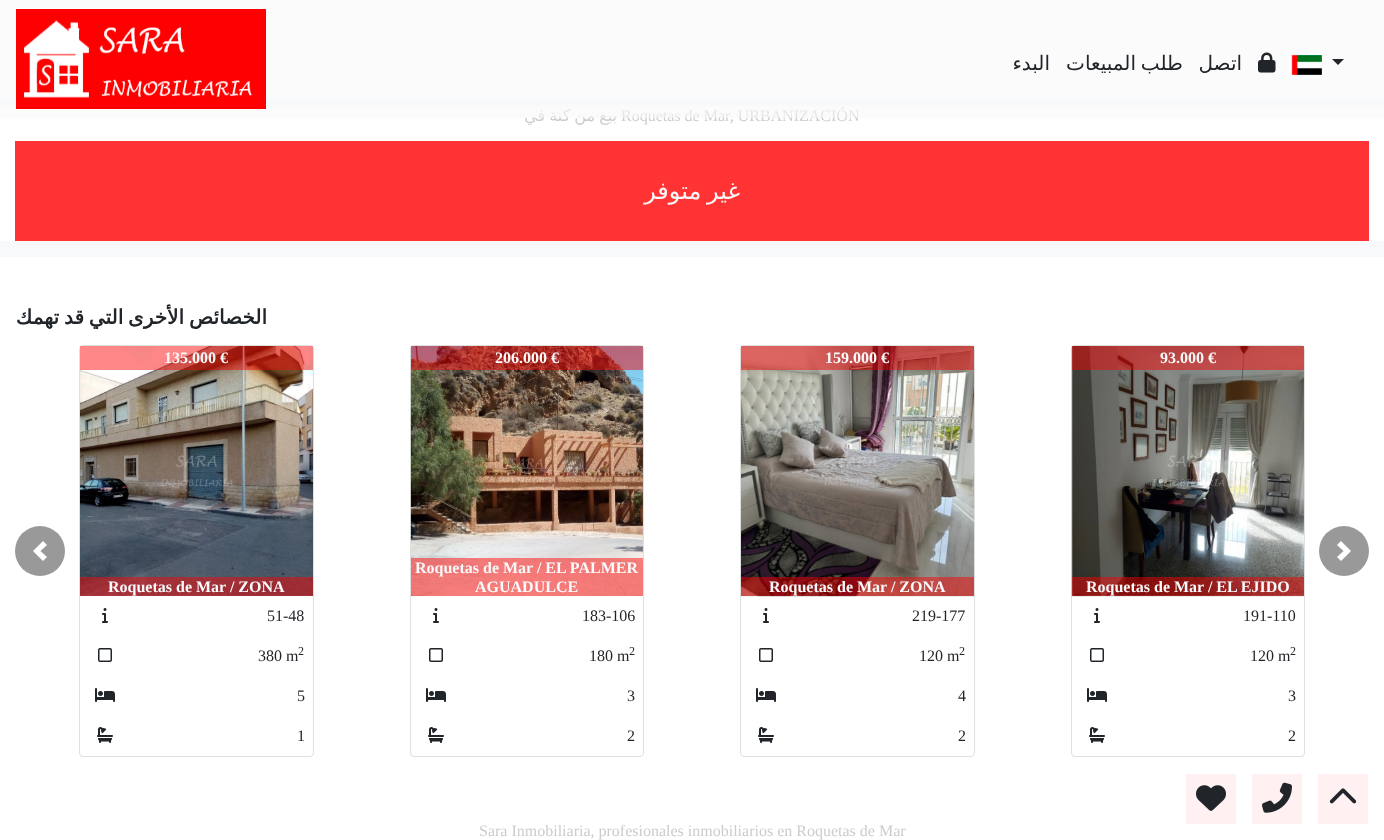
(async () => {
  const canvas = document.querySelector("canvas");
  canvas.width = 1384;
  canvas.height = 840;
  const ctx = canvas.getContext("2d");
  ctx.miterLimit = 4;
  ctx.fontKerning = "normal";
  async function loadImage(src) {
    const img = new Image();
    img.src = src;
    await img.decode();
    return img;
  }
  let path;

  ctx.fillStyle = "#ffffff";
  ctx.fillRect(0, 0, 1384, 840);
  for (const [x, y, w, h, color] of [
    [0, 98, 1384, 159, "#f8f9fa"],
    [0, 106, 1384, 135, "#ffffff"],
    [15, 141, 1354, 100, "#ff3333"],
  ]) {
    ctx.fillStyle = color;
    ctx.fillRect(x, y, w, h);
  }
  ctx.fillStyle = "#999999";
  ctx.beginPath();
  ctx.arc(40, 551, 25, 0, Math.PI * 2);
  ctx.fill();
  ctx.fillStyle = "#ffffff";
  path = new Path2D("M43 541L33 551L43 561L47 557L40.5 551L47 545Z");
  ctx.fill(path);
  ctx.beginPath();
  ctx.roundRect(79.5, 345.5, 234, 411, 3.5);
  ctx.strokeStyle = "#dfdfdf";
  ctx.stroke();
  ctx.drawImage(await loadImage("img/4.png"), 80, 346, 233, 250);
  ctx.fillStyle = "rgba(254, 0, 0, 0.47)";
  ctx.fillRect(80, 346, 233, 24);
  ctx.fillRect(80, 577, 233, 19);
  ctx.drawImage(await loadImage("img/5.png"), 102, 608, 6, 15);
  ctx.drawImage(await loadImage("img/6.png"), 98, 648, 14, 14);
  ctx.drawImage(await loadImage("img/7.png"), 95, 688, 20, 14);
  ctx.drawImage(await loadImage("img/8.png"), 97, 727, 16, 16);
  ctx.beginPath();
  ctx.roundRect(410.5, 345.5, 233, 411, 3.5);
  ctx.stroke();
  ctx.drawImage(await loadImage("img/9.png"), 410, 346, 233, 251);
  ctx.fillRect(411, 346, 232, 24);
  ctx.fillRect(411, 558, 232, 38);
  ctx.drawImage(await loadImage("img/5.png"), 433, 608, 6, 15);
  ctx.drawImage(await loadImage("img/6.png"), 429, 648, 14, 14);
  ctx.drawImage(await loadImage("img/7.png"), 426, 688, 20, 14);
  ctx.drawImage(await loadImage("img/8.png"), 428, 727, 16, 16);
  ctx.beginPath();
  ctx.roundRect(740.5, 345.5, 234, 411, 3.5);
  ctx.stroke();
  ctx.drawImage(await loadImage("img/10.png"), 741, 346, 233, 251);
  ctx.fillRect(741, 346, 233, 24);
  ctx.fillRect(741, 577, 233, 19);
  ctx.drawImage(await loadImage("img/5.png"), 763, 608, 6, 15);
  ctx.drawImage(await loadImage("img/6.png"), 759, 648, 14, 14);
  ctx.drawImage(await loadImage("img/7.png"), 756, 688, 20, 14);
  ctx.drawImage(await loadImage("img/8.png"), 758, 727, 16, 16);
  ctx.beginPath();
  ctx.roundRect(1071.5, 345.5, 233, 411, 3.5);
  ctx.stroke();
  ctx.drawImage(await loadImage("img/11.png"), 1071, 346, 233, 251);
  ctx.fillRect(1072, 346, 232, 24);
  ctx.fillRect(1072, 577, 232, 19);
  ctx.drawImage(await loadImage("img/5.png"), 1094, 608, 6, 15);
  ctx.drawImage(await loadImage("img/6.png"), 1090, 648, 14, 14);
  ctx.drawImage(await loadImage("img/7.png"), 1087, 688, 20, 14);
  ctx.drawImage(await loadImage("img/8.png"), 1089, 727, 16, 16);
  ctx.fillStyle = "#999999";
  ctx.beginPath();
  ctx.arc(1344, 551, 25, 0, Math.PI * 2);
  ctx.fill();
  ctx.fillStyle = "#ffffff";
  path = new Path2D("M1341 541L1337 545L1343.5 551L1337 557L1341 561L1351 551Z");
  ctx.fill(path);
  ctx.fillStyle = "#fff1f1";
  ctx.fillRect(1186, 774, 50, 50);
  ctx.drawImage(await loadImage("img/12.png"), 1196, 785, 30, 26);
  ctx.fillRect(1252, 774, 50, 50);
  ctx.drawImage(await loadImage("img/13.png"), 1262, 782, 30, 31);
  ctx.fillRect(1318, 774, 50, 50);
  ctx.drawImage(await loadImage("img/14.png"), 1329, 788, 28, 16);
  ctx.wordSpacing = "-1px";
  ctx.direction = "rtl";
  ctx.font = "16px DejaVu Sans";
  ctx.fillStyle = "#cccccc";
  ctx.fillText("بيع من كنة في", 617, 121);
  ctx.wordSpacing = "0px";
  ctx.direction = "ltr";
  ctx.font = "16px Liberation Serif";
  ctx.fillText("Roquetas de Mar, URBANIZACIÓN", 621, 121);
  ctx.fillStyle = "rgba(248, 249, 250, 0.6)";
  ctx.fillRect(0, 0, 1384, 118);
  ctx.fillStyle = "#212529";
  path = new Path2D("M1332 59H1344L1338 65Z");
  ctx.fill(path);
  ctx.drawImage(await loadImage("img/3.png"), 1291, 55, 31, 20);
  ctx.drawImage(await loadImage("img/2.png"), 1258, 52, 18, 21);
  ctx.direction = "rtl";
  ctx.font = "20px DejaVu Sans";
  ctx.fillText("اتصل", 1242, 70);
  ctx.wordSpacing = "-1.5px";
  ctx.fillText("طلب المبيعات", 1183, 70);
  ctx.wordSpacing = "0px";
  ctx.fillText("البدء", 1050, 70);
  ctx.drawImage(await loadImage("img/1.png"), 16, 9, 250, 100);
  ctx.wordSpacing = "-2px";
  ctx.font = "24px DejaVu Sans";
  ctx.fillStyle = "#f8f9fa";
  ctx.fillText("غير متوفر", 740, 199);
  ctx.wordSpacing = "-1.5px";
  ctx.font = "bold 20px DejaVu Sans";
  ctx.fillStyle = "#212529";
  ctx.fillText("الخصائص الأخرى التي قد تهمك", 267, 324);
  ctx.wordSpacing = "0px";
  ctx.direction = "ltr";
  ctx.font = "bold 16px Liberation Serif";
  ctx.fillStyle = "#f8f9fa";
  ctx.fillText("135.000 €", 164, 363);
  ctx.fillText("Roquetas de Mar / ZONA", 108, 592);
  ctx.font = "16px Liberation Serif";
  ctx.fillStyle = "#212529";
  ctx.fillText("51-48", 267, 621);
  ctx.fillText("380 m", 258, 661);
  ctx.font = "12px Liberation Serif";
  ctx.fillText("2", 298, 655);
  ctx.font = "16px Liberation Serif";
  ctx.fillText("5", 297, 701);
  ctx.fillText("1", 297, 741);
  ctx.font = "bold 16px Liberation Serif";
  ctx.fillStyle = "#f8f9fa";
  for (const [text, x, y] of [
    ["206.000 €", 495, 363],
    ["Roquetas de Mar / EL PALMER", 415, 573],
    ["AGUADULCE", 475, 592],
  ]) {
    ctx.fillText(text, x, y);
  }
  ctx.font = "16px Liberation Serif";
  ctx.fillStyle = "#212529";
  ctx.fillText("183-106", 582, 621);
  ctx.fillText("180 m", 589, 661);
  ctx.font = "12px Liberation Serif";
  ctx.fillText("2", 629, 655);
  ctx.font = "16px Liberation Serif";
  ctx.fillText("3", 627, 701);
  ctx.fillText("2", 627, 741);
  ctx.font = "bold 16px Liberation Serif";
  ctx.fillStyle = "#f8f9fa";
  ctx.fillText("159.000 €", 825, 363);
  ctx.fillText("Roquetas de Mar / ZONA", 769, 592);
  ctx.font = "16px Liberation Serif";
  ctx.fillStyle = "#212529";
  ctx.fillText("219-177", 912, 621);
  ctx.fillText("120 m", 919, 661);
  ctx.font = "12px Liberation Serif";
  ctx.fillText("2", 959, 655);
  ctx.font = "16px Liberation Serif";
  ctx.fillText("4", 958, 701);
  ctx.fillText("2", 958, 741);
  ctx.font = "bold 16px Liberation Serif";
  ctx.fillStyle = "#f8f9fa";
  ctx.fillText("93.000 €", 1160, 363);
  ctx.fillText("Roquetas de Mar / EL EJIDO", 1086, 592);
  ctx.font = "16px Liberation Serif";
  ctx.fillStyle = "#212529";
  ctx.fillText("191-110", 1243, 621);
  ctx.fillText("120 m", 1250, 661);
  ctx.font = "12px Liberation Serif";
  ctx.fillText("2", 1290, 655);
  ctx.font = "16px Liberation Serif";
  ctx.fillText("3", 1288, 701);
  ctx.fillText("2", 1288, 741);
  ctx.fillStyle = "#cccccc";
  ctx.fillText("Sara Inmobiliaria, profesionales inmobiliarios en Roquetas de Mar", 479, 836);
})();
